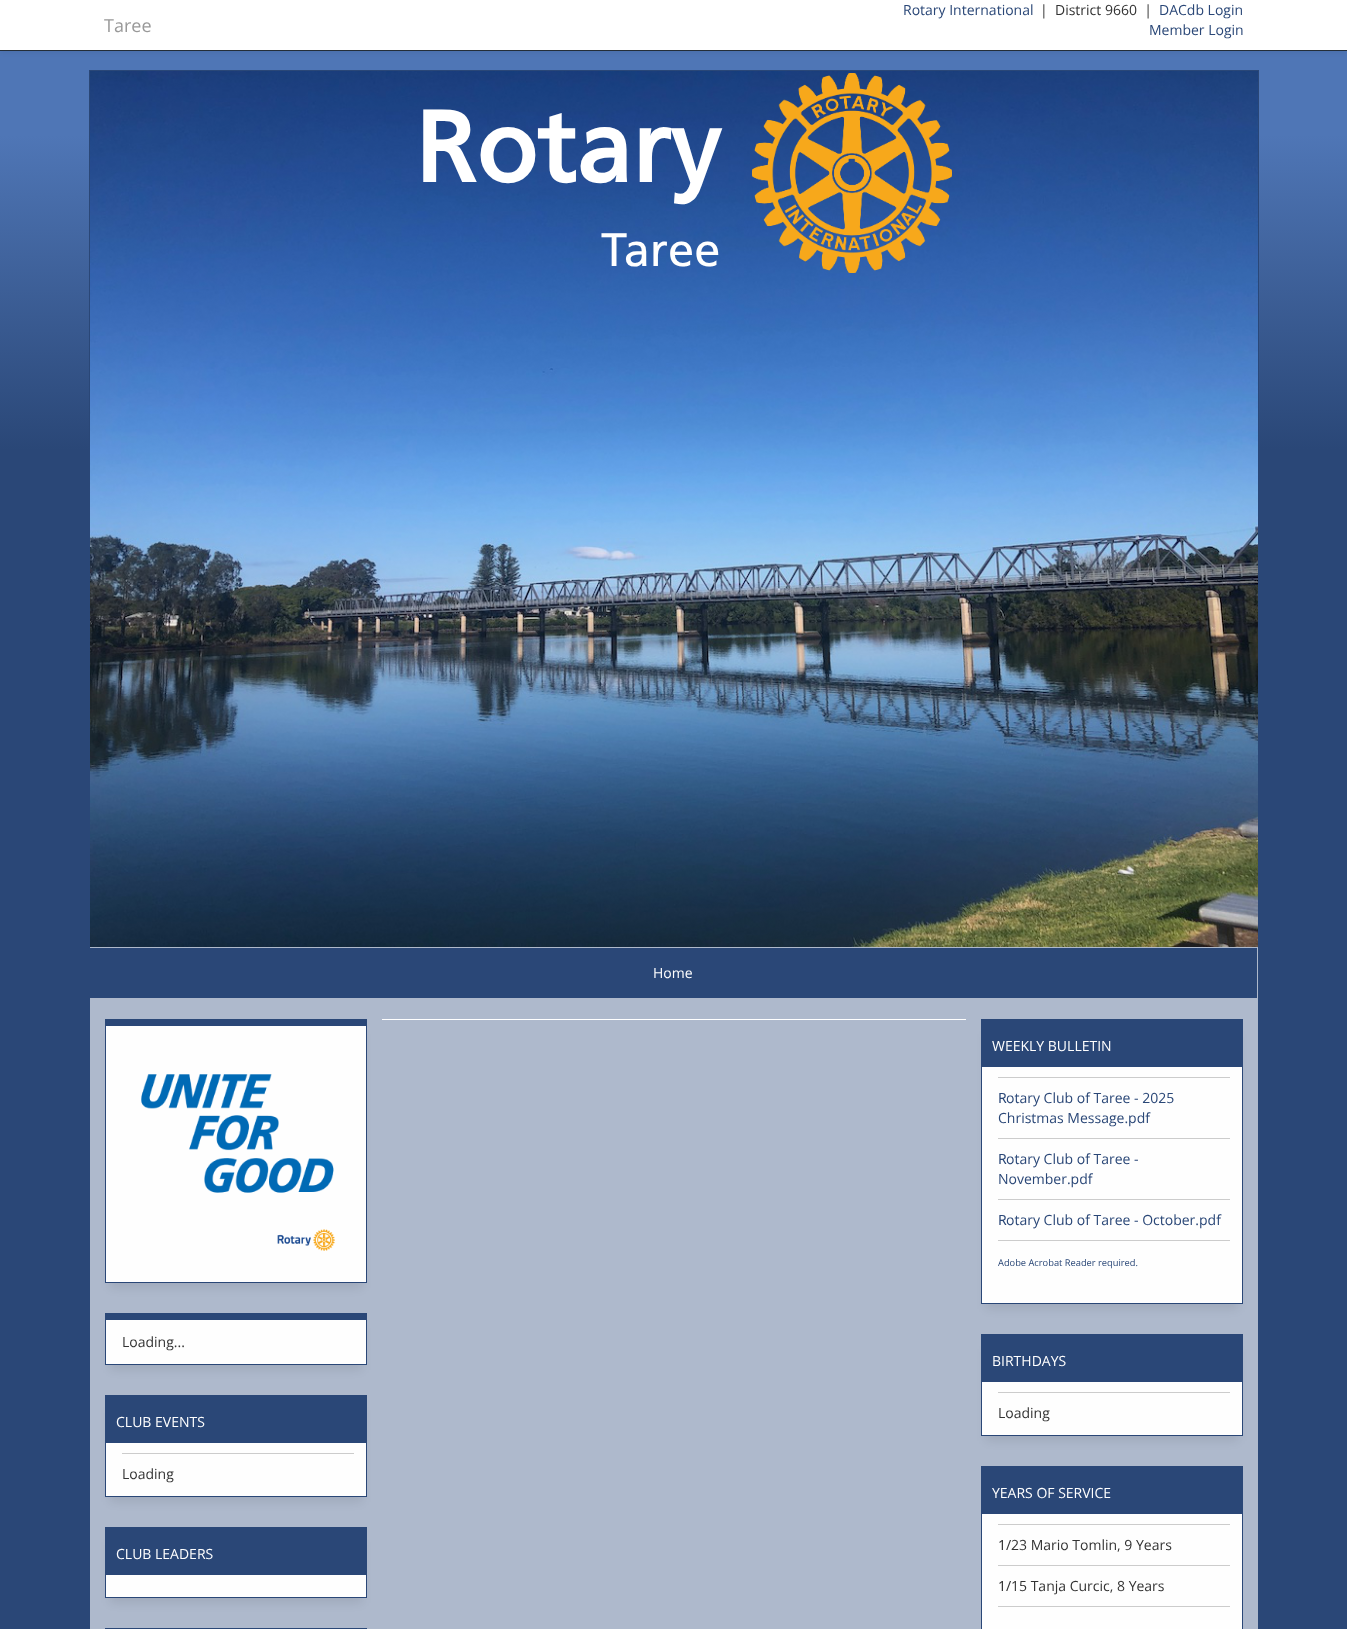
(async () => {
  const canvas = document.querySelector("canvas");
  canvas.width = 1347;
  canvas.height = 1629;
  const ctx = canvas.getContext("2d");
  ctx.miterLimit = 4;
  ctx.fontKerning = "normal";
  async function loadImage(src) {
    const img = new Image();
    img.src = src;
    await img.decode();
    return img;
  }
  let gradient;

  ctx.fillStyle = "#ffffff";
  ctx.fillRect(0, 0, 1347, 1629);
  gradient = ctx.createLinearGradient(673, 0, 674, 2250);
  gradient.addColorStop(0.06, "#4f76b6");
  gradient.addColorStop(0.2, "#2a4777");
  ctx.fillStyle = gradient;
  ctx.fillRect(0, 51, 1347, 1578);
  ctx.fillStyle = "rgba(0, 0, 0, 0.07)";
  ctx.filter = "blur(2.5px)";
  ctx.beginPath();
  ctx.rect(0, 1, 1347, 51);
  ctx.fill();
  ctx.filter = "none";
  ctx.fillStyle = "#ffffff";
  ctx.fillRect(0, 0, 1347, 50);
  ctx.fillStyle = "#242e38";
  ctx.fillRect(0, 50, 1347, 1);
  ctx.strokeStyle = "#2a4777";
  ctx.strokeRect(89.5, 70.5, 1169, 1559);
  ctx.drawImage(await loadImage("img/1.png"), 90, 71, 1168, 876);
  ctx.drawImage(await loadImage("img/2.png"), 752, 73, 200, 200);
  for (const [x, y, w, h, color] of [
    [90, 947, 1168, 1, "#aeb9cb"],
    [90, 998, 1168, 1, "#aeb9cb"],
    [1257, 948, 1, 50, "#aeb9cb"],
    [90, 999, 1168, 630, "#aeb9cc"],
    [382, 1019, 584, 1, "#ffffff"],
  ]) {
    ctx.fillStyle = color;
    ctx.fillRect(x, y, w, h);
  }
  ctx.fillStyle = "rgba(0, 0, 0, 0.08)";
  ctx.filter = "blur(5px)";
  ctx.beginPath();
  ctx.rect(110, 1034, 252, 254);
  ctx.fill();
  ctx.filter = "none";
  for (const [x, y, w, h, color] of [
    [106, 1026, 260, 256, "#fefefe"],
    [105, 1019, 262, 7, "#2a4777"],
    [366, 1019, 1, 264, "#2a4777"],
    [105, 1282, 262, 1, "#2a4777"],
    [105, 1019, 1, 264, "#2a4777"],
  ]) {
    ctx.fillStyle = color;
    ctx.fillRect(x, y, w, h);
  }
  ctx.drawImage(await loadImage("img/3.png"), 141, 1074, 194, 177);
  ctx.fillStyle = "rgba(0, 0, 0, 0.08)";
  ctx.filter = "blur(5px)";
  ctx.beginPath();
  ctx.rect(110, 1328, 252, 42);
  ctx.fill();
  ctx.filter = "none";
  for (const [x, y, w, h, color] of [
    [106, 1320, 260, 44, "#fefefe"],
    [105, 1313, 262, 7, "#2a4777"],
    [366, 1313, 1, 52, "#2a4777"],
    [105, 1364, 262, 1, "#2a4777"],
    [105, 1313, 1, 52, "#2a4777"],
  ]) {
    ctx.fillStyle = color;
    ctx.fillRect(x, y, w, h);
  }
  ctx.fillStyle = "rgba(0, 0, 0, 0.08)";
  ctx.filter = "blur(5px)";
  ctx.beginPath();
  ctx.rect(110, 1410, 252, 92);
  ctx.fill();
  ctx.filter = "none";
  for (const [x, y, w, h, color] of [
    [106, 1443, 260, 53, "#fefefe"],
    [105, 1395, 262, 7, "#2a4777"],
    [366, 1395, 1, 102, "#2a4777"],
    [105, 1496, 262, 1, "#2a4777"],
    [105, 1395, 1, 102, "#2a4777"],
    [106, 1402, 260, 41, "#2a4777"],
    [122, 1453, 232, 1, "#cccccc"],
  ]) {
    ctx.fillStyle = color;
    ctx.fillRect(x, y, w, h);
  }
  ctx.fillStyle = "rgba(0, 0, 0, 0.08)";
  ctx.filter = "blur(5px)";
  ctx.beginPath();
  ctx.rect(110, 1542, 252, 61);
  ctx.fill();
  ctx.filter = "none";
  for (const [x, y, w, h, color] of [
    [106, 1575, 260, 22, "#fefefe"],
    [105, 1527, 262, 7, "#2a4777"],
    [366, 1527, 1, 71, "#2a4777"],
    [105, 1597, 262, 1, "#2a4777"],
    [105, 1527, 1, 71, "#2a4777"],
    [106, 1534, 260, 41, "#2a4777"],
    [105, 1628, 262, 1, "#2a4777"],
  ]) {
    ctx.fillStyle = color;
    ctx.fillRect(x, y, w, h);
  }
  ctx.fillStyle = "rgba(0, 0, 0, 0.08)";
  ctx.filter = "blur(5px)";
  ctx.beginPath();
  ctx.rect(986, 1034, 252, 275);
  ctx.fill();
  ctx.filter = "none";
  for (const [x, y, w, h, color] of [
    [982, 1067, 260, 236, "#fefefe"],
    [981, 1019, 262, 7, "#2a4777"],
    [1242, 1019, 1, 285, "#2a4777"],
    [981, 1303, 262, 1, "#2a4777"],
    [981, 1019, 1, 285, "#2a4777"],
    [982, 1026, 260, 41, "#2a4777"],
    [998, 1077, 232, 1, "#cccccc"],
    [998, 1138, 232, 1, "#cccccc"],
    [998, 1199, 232, 1, "#cccccc"],
    [998, 1240, 232, 1, "#cccccc"],
  ]) {
    ctx.fillStyle = color;
    ctx.fillRect(x, y, w, h);
  }
  ctx.fillStyle = "rgba(0, 0, 0, 0.08)";
  ctx.filter = "blur(5px)";
  ctx.beginPath();
  ctx.rect(986, 1349, 252, 92);
  ctx.fill();
  ctx.filter = "none";
  for (const [x, y, w, h, color] of [
    [982, 1382, 260, 53, "#fefefe"],
    [981, 1334, 262, 7, "#2a4777"],
    [1242, 1334, 1, 102, "#2a4777"],
    [981, 1435, 262, 1, "#2a4777"],
    [981, 1334, 1, 102, "#2a4777"],
    [982, 1341, 260, 41, "#2a4777"],
    [998, 1392, 232, 1, "#cccccc"],
    [982, 1514, 260, 115, "#fefefe"],
    [981, 1466, 262, 7, "#2a4777"],
    [1242, 1466, 1, 163, "#2a4777"],
    [981, 1466, 1, 163, "#2a4777"],
    [982, 1473, 260, 41, "#2a4777"],
    [998, 1524, 232, 1, "#cccccc"],
    [998, 1565, 232, 1, "#cccccc"],
    [998, 1606, 232, 1, "#cccccc"],
  ]) {
    ctx.fillStyle = color;
    ctx.fillRect(x, y, w, h);
  }
  ctx.font = "14px Open Sans";
  ctx.fillStyle = "#2a4777";
  ctx.fillText("Rotary International", 903, 15);
  ctx.fillStyle = "#333333";
  ctx.fillText("|", 1040, 15);
  ctx.fillText("District 9660  |", 1055, 15);
  ctx.fillStyle = "#2a4777";
  ctx.fillText("DACdb Login", 1159, 15);
  ctx.font = "18px Open Sans";
  ctx.fillStyle = "#999999";
  ctx.fillText("Taree", 104, 32);
  ctx.font = "14px Open Sans";
  ctx.fillStyle = "#2a4777";
  ctx.fillText("Member Login", 1149, 35);
  ctx.font = "bold 100px Frutiger";
  ctx.fillStyle = "#ffffff";
  ctx.fillText("Rotary", 415, 182);
  ctx.font = "47px Frutiger";
  ctx.fillText("Taree", 601, 266);
  ctx.font = "14px Open Sans";
  ctx.fillText("Home", 653, 978);
  ctx.fillStyle = "#333333";
  ctx.fillText("Loading...", 122, 1347);
  ctx.fillStyle = "#ffffff";
  ctx.fillText("CLUB EVENTS", 116, 1427);
  ctx.fillStyle = "#333333";
  ctx.fillText("Loading", 122, 1479);
  ctx.fillStyle = "#ffffff";
  ctx.fillText("CLUB LEADERS", 116, 1559);
  ctx.fillText("WEEKLY BULLETIN", 992, 1051);
  ctx.font = "14px Noto Sans";
  ctx.fillStyle = "#2a4777";
  ctx.fillText("R", 998, 1103);
  ctx.font = "14px Open Sans";
  ctx.fillText("otary Club of Taree - 2025", 1006, 1103);
  ctx.fillText("Christmas Message.pdf", 998, 1123);
  ctx.font = "14px Noto Sans";
  ctx.fillText("R", 998, 1164);
  ctx.font = "14px Open Sans";
  ctx.fillText("otary Club of Taree -", 1006, 1164);
  ctx.fillText("November.pdf", 998, 1184);
  ctx.font = "14px Noto Sans";
  ctx.fillText("R", 998, 1225);
  ctx.font = "14px Open Sans";
  ctx.fillText("otary Club of Taree - October.pdf", 1006, 1225);
  ctx.font = "9.3px Open Sans";
  ctx.fillText("Adobe Acrobat Reader required.", 998, 1266);
  ctx.font = "14px Open Sans";
  ctx.fillStyle = "#ffffff";
  ctx.fillText("BIRTHDAYS", 992, 1366);
  ctx.fillStyle = "#333333";
  ctx.fillText("Loading", 998, 1418);
  ctx.fillStyle = "#ffffff";
  ctx.fillText("YEARS OF SERVICE", 992, 1498);
  ctx.font = "14px Noto Sans";
  ctx.fillStyle = "#333333";
  ctx.fillText("1/", 998, 1550);
  ctx.font = "14px Open Sans";
  ctx.fillText("23 Mario Tomlin, 9 Years", 1011, 1550);
  ctx.font = "14px Noto Sans";
  ctx.fillText("1/", 998, 1591);
  ctx.font = "14px Open Sans";
  ctx.fillText("15 Tanja Curcic, 8 Years", 1011, 1591);
})();
